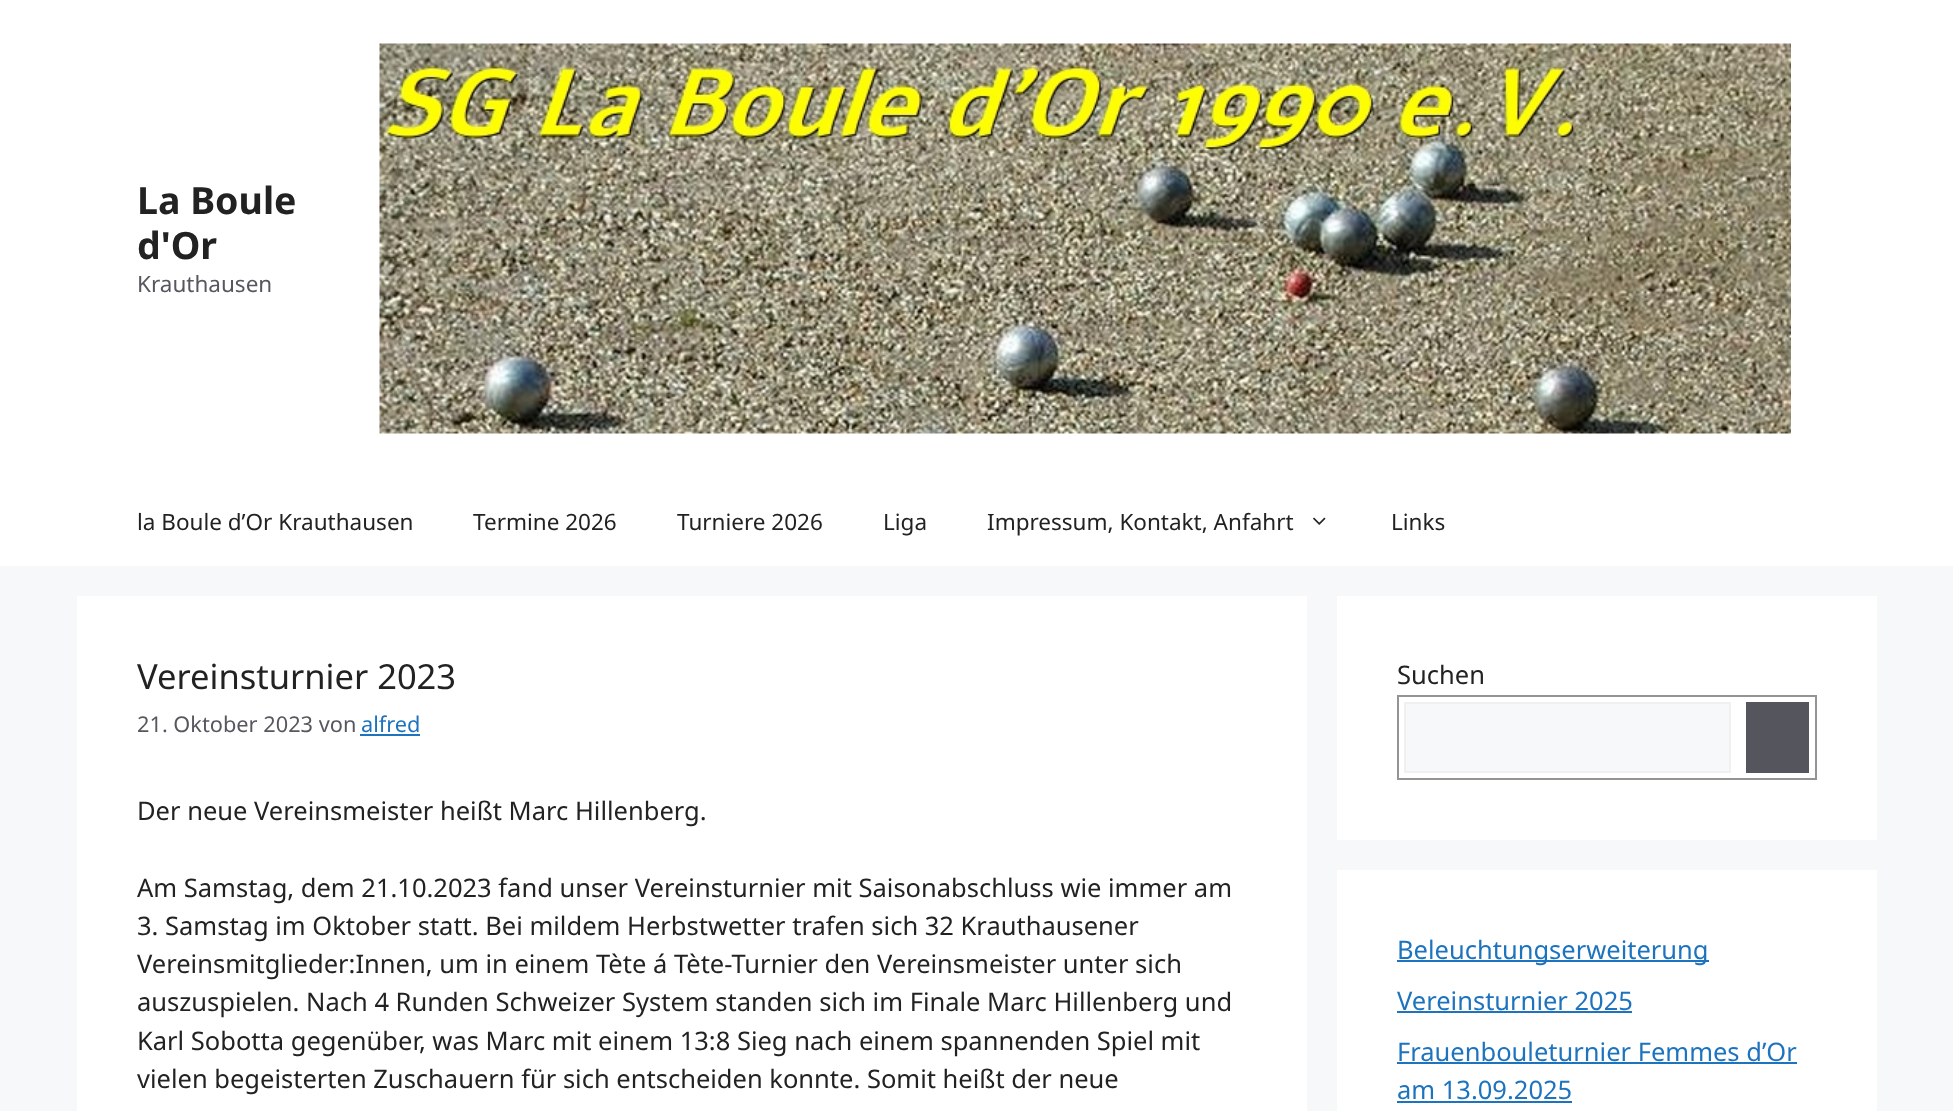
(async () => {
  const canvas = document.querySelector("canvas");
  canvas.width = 1953;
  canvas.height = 1111;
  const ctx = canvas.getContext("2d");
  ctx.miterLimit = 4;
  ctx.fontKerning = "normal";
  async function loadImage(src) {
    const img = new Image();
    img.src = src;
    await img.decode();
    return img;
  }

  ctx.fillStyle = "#f7f8f9";
  ctx.fillRect(0, 0, 1953, 1111);
  ctx.fillStyle = "#ffffff";
  ctx.fillRect(0, 0, 1953, 566);
  ctx.drawImage(await loadImage("img/1.png"), 379, 43, 1412, 391);
  ctx.drawImage(await loadImage("img/2.png"), 1313, 517, 13, 8);
  for (const [x, y, w, h, color] of [
    [77, 596, 1230, 515, "#ffffff"],
    [360, 734, 60, 2, "#1e73be"],
    [1337, 596, 540, 244, "#ffffff"],
  ]) {
    ctx.fillStyle = color;
    ctx.fillRect(x, y, w, h);
  }
  ctx.strokeStyle = "#949494";
  ctx.lineWidth = 2;
  ctx.strokeRect(1398, 696, 418, 83);
  ctx.fillStyle = "#f7f8f9";
  ctx.beginPath();
  ctx.rect(1405, 703, 325, 69);
  ctx.fill();
  ctx.strokeStyle = "#f0f0f0";
  ctx.stroke();
  for (const [x, y, w, h, color] of [
    [1746, 702, 63, 71, "#55555e"],
    [1337, 870, 540, 241, "#ffffff"],
    [1397, 960, 312, 2, "#1e73be"],
    [1397, 1011, 235, 2, "#1e73be"],
    [1397, 1062, 400, 2, "#1e73be"],
    [1397, 1101, 175, 2, "#1e73be"],
  ]) {
    ctx.fillStyle = color;
    ctx.fillRect(x, y, w, h);
  }
  ctx.font = "bold 37.5px Noto Sans";
  ctx.fillStyle = "#222222";
  ctx.fillText("La Boule", 137, 214);
  ctx.fillText("d'Or", 137, 259);
  ctx.font = "22.5px Noto Sans";
  ctx.fillStyle = "#575760";
  ctx.fillText("Krauthausen", 137, 292);
  ctx.fillStyle = "#222222";
  for (const [text, x, y] of [
    ["la Boule d’Or Krauthausen", 137, 530],
    ["Termine 2026", 473, 530],
    ["Turniere 2026", 677, 530],
    ["Liga", 883, 530],
    ["Impressum, Kontakt, Anfahrt", 987, 530],
    ["Links", 1391, 530],
  ]) {
    ctx.fillText(text, x, y);
  }
  ctx.font = "34.5px Noto Sans";
  ctx.fillText("Vereinsturnier 2023", 137, 689);
  ctx.font = "21.75px Noto Sans";
  ctx.fillStyle = "#575760";
  ctx.fillText("21. Oktober 2023 von", 137, 732);
  ctx.fillStyle = "#1e73be";
  ctx.fillText("alfred", 361, 732);
  ctx.font = "25.5px Noto Sans";
  ctx.fillStyle = "#222222";
  for (const [text, x, y] of [
    ["Der neue Vereinsmeister heißt Marc Hillenberg.", 137, 820],
    ["Am Samstag, dem 21.10.2023 fand unser Vereinsturnier mit Saisonabschluss wie immer am", 137, 897],
    ["3. Samstag im Oktober statt. Bei mildem Herbstwetter trafen sich 32 Krauthausener", 137, 935],
    ["Vereinsmitglieder:Innen, um in einem Tète á Tète-Turnier den Vereinsmeister unter sich", 137, 973],
    ["auszuspielen. Nach 4 Runden Schweizer System standen sich im Finale Marc Hillenberg und", 137, 1011],
    ["Karl Sobotta gegenüber, was Marc mit einem 13:8 Sieg nach einem spannenden Spiel mit", 137, 1050],
    ["vielen begeisterten Zuschauern für sich entscheiden konnte. Somit heißt der neue", 137, 1088],
    ["Suchen", 1397, 684],
  ]) {
    ctx.fillText(text, x, y);
  }
  ctx.fillStyle = "#1e73be";
  for (const [text, x, y] of [
    ["Beleuchtungserweiterung", 1397, 959],
    ["Vereinsturnier 2025", 1397, 1010],
    ["Frauenbouleturnier Femmes d’Or", 1397, 1061],
    ["am 13.09.2025", 1397, 1099],
  ]) {
    ctx.fillText(text, x, y);
  }
})();
